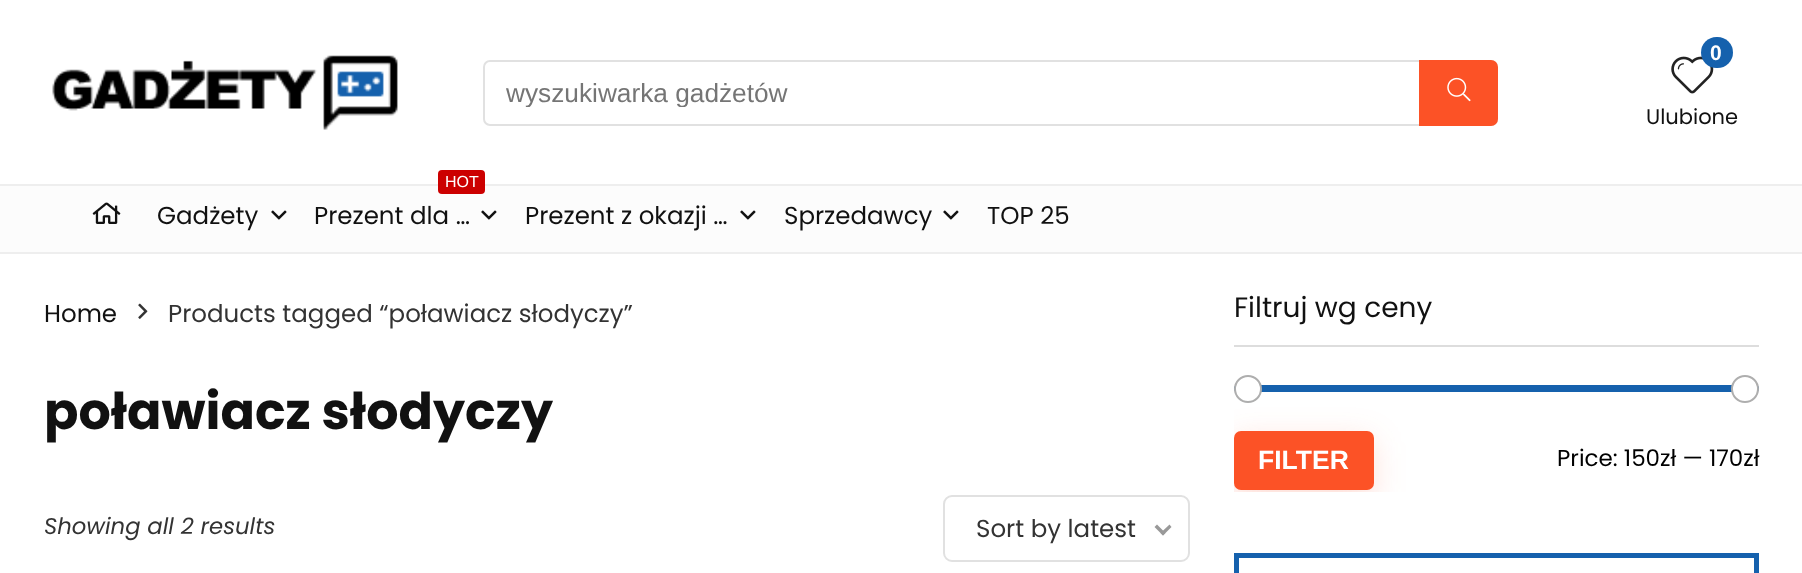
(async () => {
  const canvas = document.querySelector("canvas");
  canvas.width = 1802;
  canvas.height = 573;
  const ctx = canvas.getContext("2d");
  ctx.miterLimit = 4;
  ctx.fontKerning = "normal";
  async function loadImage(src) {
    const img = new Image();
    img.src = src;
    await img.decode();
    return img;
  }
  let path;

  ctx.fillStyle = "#ffffff";
  ctx.fillRect(0, 0, 1802, 573);
  ctx.drawImage(await loadImage("img/1.png"), 52, 55, 346, 75);
  ctx.beginPath();
  ctx.roundRect(484, 61, 1013, 64, 6);
  ctx.strokeStyle = "#e1e1e1";
  ctx.lineWidth = 2;
  ctx.stroke();
  ctx.fillStyle = "#fc5226";
  ctx.beginPath();
  ctx.roundRect(1419, 60, 79, 66, [0, 7, 7, 0]);
  ctx.fill();
  ctx.drawImage(await loadImage("img/2.png"), 1447, 77, 24, 25);
  ctx.drawImage(await loadImage("img/3.png"), 1671, 56, 43, 38);
  ctx.fillStyle = "#1561ad";
  ctx.beginPath();
  ctx.roundRect(1701, 37, 32, 31, 15.5);
  ctx.fill();
  for (const [x, y, w, h, color] of [
    [0, 186, 1802, 66, "#fcfcfc"],
    [0, 184, 1802, 2, "#eeeeee"],
    [0, 252, 1802, 2, "#eeeeee"],
  ]) {
    ctx.fillStyle = color;
    ctx.fillRect(x, y, w, h);
  }
  ctx.drawImage(await loadImage("img/4.png"), 92, 202, 29, 22);
  ctx.drawImage(await loadImage("img/5.png"), 271, 210, 16, 10);
  ctx.fillStyle = "#cc0000";
  ctx.beginPath();
  ctx.roundRect(438, 170, 47, 24, 4);
  ctx.fill();
  ctx.drawImage(await loadImage("img/5.png"), 481, 210, 16, 10);
  ctx.drawImage(await loadImage("img/5.png"), 740, 210, 16, 10);
  ctx.drawImage(await loadImage("img/5.png"), 943, 210, 16, 10);
  ctx.drawImage(await loadImage("img/6.png"), 138, 303, 10, 16);
  ctx.beginPath();
  ctx.roundRect(944, 496, 245, 65, 8);
  ctx.stroke();
  ctx.fillStyle = "#999999";
  path = new Path2D("M1169.5 524.5L1171.5 527L1163 535.5L1160.5 533Z");
  ctx.fill(path);
  path = new Path2D("M1157 524.5L1165.5 533L1163 535.5L1154.5 527Z");
  ctx.fill(path);
  ctx.fillStyle = "#dddddd";
  ctx.fillRect(1234, 345, 525, 2);
  ctx.save();
  ctx.beginPath();
  ctx.rect(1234, 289, 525, 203);
  ctx.clip();
  ctx.fillStyle = "rgba(252, 82, 38, 0.2)";
  ctx.filter = "blur(16.5px)";
  ctx.beginPath();
  ctx.roundRect(1232, 441, 140, 60, 7);
  ctx.fill();
  ctx.filter = "none";
  ctx.restore();
  ctx.fillStyle = "#1561ad";
  ctx.beginPath();
  ctx.roundRect(1234, 385, 525, 7, 3.5);
  ctx.fill();
  ctx.fillStyle = "#ffffff";
  ctx.beginPath();
  ctx.arc(1248, 389, 13, 0, Math.PI * 2);
  ctx.fill();
  ctx.strokeStyle = "#aeaeae";
  ctx.stroke();
  ctx.beginPath();
  ctx.arc(1745, 389, 13, 0, Math.PI * 2);
  ctx.fill();
  ctx.stroke();
  ctx.fillStyle = "#fc5226";
  ctx.beginPath();
  ctx.roundRect(1234, 431, 140, 59, 7);
  ctx.fill();
  ctx.strokeStyle = "#1561ad";
  ctx.lineWidth = 5;
  ctx.strokeRect(1236.5, 555.5, 520, 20);
  ctx.save();
  ctx.beginPath();
  ctx.rect(506, 77, 912, 30);
  ctx.clip();
  ctx.font = "26.25px Liberation Sans";
  ctx.fillStyle = "#757575";
  ctx.fillText("wyszukiwarka gadżetów", 506, 102);
  ctx.restore();
  ctx.font = "bold 21px Liberation Sans";
  ctx.fillStyle = "#ffffff";
  ctx.fillText("0", 1710, 60);
  ctx.font = "21px Poppins";
  ctx.fillStyle = "#111111";
  ctx.fillText("Ulubione", 1646, 124);
  ctx.font = "24.5px Poppins";
  ctx.fillText("Gadżety", 157, 224);
  ctx.font = "16px Liberation Sans";
  ctx.fillStyle = "#ffffff";
  ctx.fillText("HOT", 445, 187);
  ctx.font = "24.5px Poppins";
  ctx.fillStyle = "#111111";
  for (const [text, x, y] of [
    ["Prezent dla …", 314, 224],
    ["Prezent z okazji …", 525, 224],
    ["Sprzedawcy", 784, 224],
    ["TOP 25", 987, 224],
    ["Home", 44, 322],
  ]) {
    ctx.fillText(text, x, y);
  }
  ctx.fillStyle = "#333333";
  ctx.fillText("Products tagged “poławiacz słodyczy”", 168, 322);
  ctx.font = "bold 50.75px Poppins";
  ctx.fillStyle = "#111111";
  ctx.fillText("poławiacz słodyczy", 44, 429);
  ctx.font = "italic 22.75px Poppins";
  ctx.fillStyle = "#333333";
  ctx.fillText("Showing all 2 results", 44, 534);
  ctx.font = "24.5px Poppins";
  ctx.fillText("Sort by latest", 976, 537);
  ctx.font = "28px Poppins";
  ctx.fillStyle = "#111111";
  ctx.fillText("Filtruj wg ceny", 1234, 317);
  ctx.font = "bold 26.5px Liberation Sans";
  ctx.fillStyle = "#ffffff";
  ctx.fillText("FILTER", 1258, 469);
  ctx.font = "23px Poppins";
  ctx.fillStyle = "#000000";
  ctx.fillText("Price: 150zł — 170zł", 1557, 466);
})();
